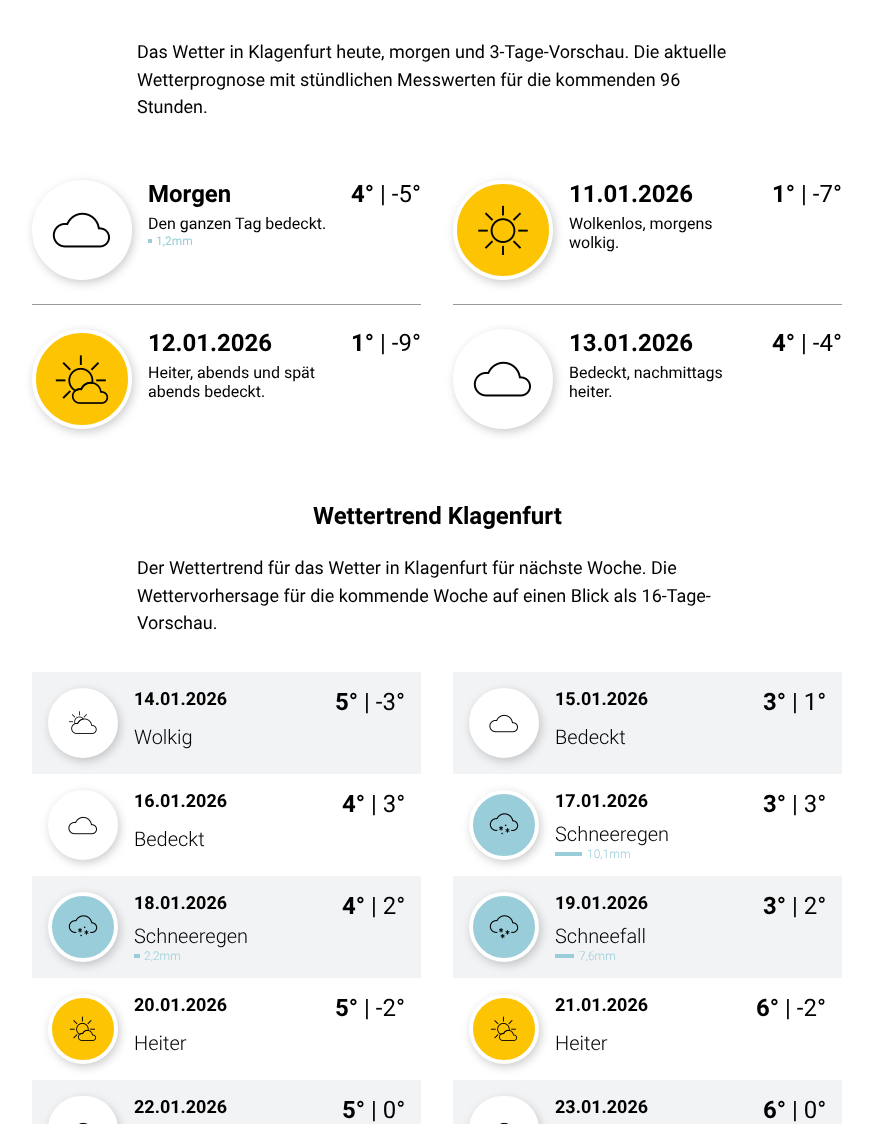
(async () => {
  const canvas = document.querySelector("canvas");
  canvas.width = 874;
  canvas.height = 1124;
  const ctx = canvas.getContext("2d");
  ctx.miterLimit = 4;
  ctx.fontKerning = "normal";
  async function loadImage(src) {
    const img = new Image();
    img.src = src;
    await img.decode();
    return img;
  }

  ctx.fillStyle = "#ffffff";
  ctx.fillRect(0, 0, 874, 1124);
  ctx.fillStyle = "#999999";
  ctx.fillRect(32, 304, 389, 1);
  ctx.fillStyle = "rgba(0, 0, 0, 0.2)";
  ctx.filter = "blur(5px)";
  ctx.beginPath();
  ctx.roundRect(34, 183, 100, 100, 50);
  ctx.fill();
  ctx.filter = "none";
  ctx.fillStyle = "#ffffff";
  ctx.beginPath();
  ctx.arc(82, 230, 48, 0, Math.PI * 2);
  ctx.fill();
  ctx.strokeStyle = "#ffffff";
  ctx.lineWidth = 4;
  ctx.stroke();
  ctx.drawImage(await loadImage("img/1.png"), 52, 212, 58, 36);
  ctx.fillStyle = "#99cdda";
  ctx.fillRect(148, 239, 4, 4);
  ctx.fillStyle = "#999999";
  ctx.fillRect(453, 304, 389, 1);
  ctx.fillStyle = "rgba(0, 0, 0, 0.2)";
  ctx.filter = "blur(5px)";
  ctx.beginPath();
  ctx.roundRect(455, 183, 100, 100, 50);
  ctx.fill();
  ctx.filter = "none";
  ctx.fillStyle = "#fdc403";
  ctx.beginPath();
  ctx.arc(503, 230, 48, 0, Math.PI * 2);
  ctx.fill();
  ctx.stroke();
  ctx.drawImage(await loadImage("img/2.png"), 478, 205, 50, 50);
  ctx.fillStyle = "rgba(0, 0, 0, 0.2)";
  ctx.filter = "blur(5px)";
  ctx.beginPath();
  ctx.roundRect(34, 332, 100, 100, 50);
  ctx.fill();
  ctx.filter = "none";
  ctx.fillStyle = "#fdc403";
  ctx.beginPath();
  ctx.arc(82, 379, 48, 0, Math.PI * 2);
  ctx.fill();
  ctx.stroke();
  ctx.drawImage(await loadImage("img/3.png"), 55, 355, 54, 49);
  ctx.fillStyle = "rgba(0, 0, 0, 0.2)";
  ctx.filter = "blur(5px)";
  ctx.beginPath();
  ctx.roundRect(455, 332, 100, 100, 50);
  ctx.fill();
  ctx.filter = "none";
  ctx.fillStyle = "#ffffff";
  ctx.beginPath();
  ctx.arc(503, 379, 48, 0, Math.PI * 2);
  ctx.fill();
  ctx.stroke();
  ctx.drawImage(await loadImage("img/1.png"), 473, 361, 58, 36);
  ctx.fillStyle = "#f2f3f5";
  ctx.fillRect(32, 672, 389, 102);
  ctx.fillStyle = "rgba(0, 0, 0, 0.2)";
  ctx.filter = "blur(5px)";
  ctx.beginPath();
  ctx.roundRect(50, 691, 70, 70, 35);
  ctx.fill();
  ctx.filter = "none";
  ctx.fillStyle = "#ffffff";
  ctx.beginPath();
  ctx.arc(83, 723, 33, 0, Math.PI * 2);
  ctx.fill();
  ctx.stroke();
  ctx.drawImage(await loadImage("img/4.png"), 69, 711, 28, 23);
  ctx.fillStyle = "#f2f3f5";
  ctx.fillRect(453, 672, 389, 102);
  ctx.fillStyle = "rgba(0, 0, 0, 0.2)";
  ctx.filter = "blur(5px)";
  ctx.beginPath();
  ctx.roundRect(471, 691, 70, 70, 35);
  ctx.fill();
  ctx.filter = "none";
  ctx.fillStyle = "#ffffff";
  ctx.beginPath();
  ctx.arc(504, 723, 33, 0, Math.PI * 2);
  ctx.fill();
  ctx.stroke();
  ctx.drawImage(await loadImage("img/5.png"), 489, 714, 29, 19);
  ctx.fillStyle = "rgba(0, 0, 0, 0.2)";
  ctx.filter = "blur(5px)";
  ctx.beginPath();
  ctx.roundRect(50, 793, 70, 70, 35);
  ctx.fill();
  ctx.filter = "none";
  ctx.fillStyle = "#ffffff";
  ctx.beginPath();
  ctx.arc(83, 825, 33, 0, Math.PI * 2);
  ctx.fill();
  ctx.stroke();
  ctx.drawImage(await loadImage("img/5.png"), 68, 816, 29, 19);
  ctx.fillStyle = "rgba(0, 0, 0, 0.2)";
  ctx.filter = "blur(5px)";
  ctx.beginPath();
  ctx.roundRect(471, 793, 70, 70, 35);
  ctx.fill();
  ctx.filter = "none";
  ctx.fillStyle = "#99cdda";
  ctx.beginPath();
  ctx.arc(504, 825, 33, 0, Math.PI * 2);
  ctx.fill();
  ctx.stroke();
  ctx.drawImage(await loadImage("img/6.png"), 489, 813, 30, 22);
  ctx.fillRect(555, 852, 27, 4);
  ctx.fillStyle = "#f2f3f5";
  ctx.fillRect(32, 876, 389, 102);
  ctx.fillStyle = "rgba(0, 0, 0, 0.2)";
  ctx.filter = "blur(5px)";
  ctx.beginPath();
  ctx.roundRect(50, 895, 70, 70, 35);
  ctx.fill();
  ctx.filter = "none";
  ctx.fillStyle = "#99cdda";
  ctx.beginPath();
  ctx.arc(83, 927, 33, 0, Math.PI * 2);
  ctx.fill();
  ctx.stroke();
  ctx.drawImage(await loadImage("img/6.png"), 68, 915, 30, 22);
  ctx.fillRect(134, 954, 6, 4);
  ctx.fillStyle = "#f2f3f5";
  ctx.fillRect(453, 876, 389, 102);
  ctx.fillStyle = "rgba(0, 0, 0, 0.2)";
  ctx.filter = "blur(5px)";
  ctx.beginPath();
  ctx.roundRect(471, 895, 70, 70, 35);
  ctx.fill();
  ctx.filter = "none";
  ctx.fillStyle = "#99cdda";
  ctx.beginPath();
  ctx.arc(504, 927, 33, 0, Math.PI * 2);
  ctx.fill();
  ctx.stroke();
  ctx.drawImage(await loadImage("img/7.png"), 489, 915, 30, 24);
  ctx.fillRect(555, 954, 19, 4);
  ctx.fillStyle = "rgba(0, 0, 0, 0.2)";
  ctx.filter = "blur(5px)";
  ctx.beginPath();
  ctx.roundRect(50, 997, 70, 70, 35);
  ctx.fill();
  ctx.filter = "none";
  ctx.fillStyle = "#fdc403";
  ctx.beginPath();
  ctx.arc(83, 1029, 33, 0, Math.PI * 2);
  ctx.fill();
  ctx.stroke();
  ctx.drawImage(await loadImage("img/8.png"), 69, 1016, 28, 25);
  ctx.fillStyle = "rgba(0, 0, 0, 0.2)";
  ctx.filter = "blur(5px)";
  ctx.beginPath();
  ctx.roundRect(471, 997, 70, 70, 35);
  ctx.fill();
  ctx.filter = "none";
  ctx.fillStyle = "#fdc403";
  ctx.beginPath();
  ctx.arc(504, 1029, 33, 0, Math.PI * 2);
  ctx.fill();
  ctx.stroke();
  ctx.drawImage(await loadImage("img/8.png"), 490, 1016, 28, 25);
  ctx.fillStyle = "#f2f3f5";
  ctx.fillRect(32, 1080, 389, 44);
  ctx.fillStyle = "rgba(0, 0, 0, 0.2)";
  ctx.filter = "blur(5px)";
  ctx.beginPath();
  ctx.roundRect(50, 1099, 70, 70, 35);
  ctx.fill();
  ctx.filter = "none";
  ctx.fillStyle = "#ffffff";
  ctx.beginPath();
  ctx.roundRect(50, 1098, 66, 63, 33);
  ctx.fill();
  ctx.stroke();
  ctx.drawImage(await loadImage("img/9.png"), 79, 1122, 9, 2);
  ctx.fillStyle = "#f2f3f5";
  ctx.fillRect(453, 1080, 389, 44);
  ctx.fillStyle = "rgba(0, 0, 0, 0.2)";
  ctx.filter = "blur(5px)";
  ctx.beginPath();
  ctx.roundRect(471, 1099, 70, 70, 35);
  ctx.fill();
  ctx.filter = "none";
  ctx.fillStyle = "#ffffff";
  ctx.beginPath();
  ctx.roundRect(471, 1098, 66, 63, 33);
  ctx.fill();
  ctx.stroke();
  ctx.drawImage(await loadImage("img/9.png"), 500, 1122, 9, 2);
  ctx.font = "18px Roboto";
  ctx.fillStyle = "#000000";
  for (const [text, x, y] of [
    ["Das Wetter in Klagenfurt heute, morgen und 3-Tage-Vorschau. Die aktuelle", 137, 58],
    ["Wetterprognose mit stündlichen Messwerten für die kommenden 96", 137, 86],
    ["Stunden.", 137, 113],
  ]) {
    ctx.fillText(text, x, y);
  }
  ctx.font = "bold 24px Roboto";
  ctx.fillText("Morgen", 148, 202);
  ctx.fillText("4°", 351, 202);
  ctx.font = "24px Roboto";
  ctx.fillText("| -5°", 380, 202);
  ctx.font = "16px Roboto";
  ctx.fillText("Den ganzen Tag bedeckt.", 148, 229);
  ctx.font = "12px Roboto";
  ctx.fillStyle = "#99cdda";
  ctx.fillText("1,2mm", 156, 245);
  ctx.font = "bold 24px Roboto";
  ctx.fillStyle = "#000000";
  ctx.fillText("11.01.2026", 569, 202);
  ctx.fillText("1°", 772, 202);
  ctx.font = "24px Roboto";
  ctx.fillText("| -7°", 801, 202);
  ctx.font = "16px Roboto";
  ctx.fillText("Wolkenlos, morgens", 569, 229);
  ctx.fillText("wolkig.", 569, 248);
  ctx.font = "bold 24px Roboto";
  ctx.fillText("12.01.2026", 148, 351);
  ctx.fillText("1°", 351, 351);
  ctx.font = "24px Roboto";
  ctx.fillText("| -9°", 380, 351);
  ctx.font = "16px Roboto";
  ctx.fillText("Heiter, abends und spät", 148, 378);
  ctx.fillText("abends bedeckt.", 148, 397);
  ctx.font = "bold 24px Roboto";
  ctx.fillText("13.01.2026", 569, 351);
  ctx.fillText("4°", 772, 351);
  ctx.font = "24px Roboto";
  ctx.fillText("| -4°", 801, 351);
  ctx.font = "16px Roboto";
  ctx.fillText("Bedeckt, nachmittags", 569, 378);
  ctx.fillText("heiter.", 569, 397);
  ctx.font = "bold 24px Roboto";
  ctx.fillText("Wettertrend Klagenfurt", 313, 524);
  ctx.font = "18px Roboto";
  for (const [text, x, y] of [
    ["Der Wettertrend für das Wetter in Klagenfurt für nächste Woche. Die", 137, 574],
    ["Wettervorhersage für die kommende Woche auf einen Blick als 16-Tage-", 137, 602],
    ["Vorschau.", 137, 629],
  ]) {
    ctx.fillText(text, x, y);
  }
  ctx.font = "bold 18px Roboto";
  ctx.fillText("14.01.2026", 134, 705);
  ctx.font = "bold 24px Roboto";
  ctx.fillText("5°", 335, 710);
  ctx.font = "24px Roboto";
  ctx.fillText("| -3°", 364, 710);
  ctx.font = "300 20px Roboto";
  ctx.fillText("Wolkig", 134, 744);
  ctx.font = "bold 18px Roboto";
  ctx.fillText("15.01.2026", 555, 705);
  ctx.font = "bold 24px Roboto";
  ctx.fillText("3°", 763, 710);
  ctx.font = "24px Roboto";
  ctx.fillText("| 1°", 792, 710);
  ctx.font = "300 20px Roboto";
  ctx.fillText("Bedeckt", 555, 744);
  ctx.font = "bold 18px Roboto";
  ctx.fillText("16.01.2026", 134, 807);
  ctx.font = "bold 24px Roboto";
  ctx.fillText("4°", 342, 812);
  ctx.font = "24px Roboto";
  ctx.fillText("| 3°", 371, 812);
  ctx.font = "300 20px Roboto";
  ctx.fillText("Bedeckt", 134, 846);
  ctx.font = "bold 18px Roboto";
  ctx.fillText("17.01.2026", 555, 807);
  ctx.font = "bold 24px Roboto";
  ctx.fillText("3°", 763, 812);
  ctx.font = "24px Roboto";
  ctx.fillText("| 3°", 792, 812);
  ctx.font = "300 20px Roboto";
  ctx.fillText("Schneeregen", 555, 841);
  ctx.font = "300 12px Roboto";
  ctx.fillStyle = "#99cdda";
  ctx.fillText("10,1mm", 587, 858);
  ctx.font = "bold 18px Roboto";
  ctx.fillStyle = "#000000";
  ctx.fillText("18.01.2026", 134, 909);
  ctx.font = "bold 24px Roboto";
  ctx.fillText("4°", 342, 914);
  ctx.font = "24px Roboto";
  ctx.fillText("| 2°", 371, 914);
  ctx.font = "300 20px Roboto";
  ctx.fillText("Schneeregen", 134, 943);
  ctx.font = "300 12px Roboto";
  ctx.fillStyle = "#99cdda";
  ctx.fillText("2,2mm", 144, 960);
  ctx.font = "bold 18px Roboto";
  ctx.fillStyle = "#000000";
  ctx.fillText("19.01.2026", 555, 909);
  ctx.font = "bold 24px Roboto";
  ctx.fillText("3°", 763, 914);
  ctx.font = "24px Roboto";
  ctx.fillText("| 2°", 792, 914);
  ctx.font = "300 20px Roboto";
  ctx.fillText("Schneefall", 555, 943);
  ctx.font = "300 12px Roboto";
  ctx.fillStyle = "#99cdda";
  ctx.fillText("7,6mm", 579, 960);
  ctx.font = "bold 18px Roboto";
  ctx.fillStyle = "#000000";
  ctx.fillText("20.01.2026", 134, 1011);
  ctx.font = "bold 24px Roboto";
  ctx.fillText("5°", 335, 1016);
  ctx.font = "24px Roboto";
  ctx.fillText("| -2°", 364, 1016);
  ctx.font = "300 20px Roboto";
  ctx.fillText("Heiter", 134, 1050);
  ctx.font = "bold 18px Roboto";
  ctx.fillText("21.01.2026", 555, 1011);
  ctx.font = "bold 24px Roboto";
  ctx.fillText("6°", 756, 1016);
  ctx.font = "24px Roboto";
  ctx.fillText("| -2°", 785, 1016);
  ctx.font = "300 20px Roboto";
  ctx.fillText("Heiter", 555, 1050);
  ctx.font = "bold 18px Roboto";
  ctx.fillText("22.01.2026", 134, 1113);
  ctx.font = "bold 24px Roboto";
  ctx.fillText("5°", 342, 1118);
  ctx.font = "24px Roboto";
  ctx.fillText("| 0°", 371, 1118);
  ctx.font = "bold 18px Roboto";
  ctx.fillText("23.01.2026", 555, 1113);
  ctx.font = "bold 24px Roboto";
  ctx.fillText("6°", 763, 1118);
  ctx.font = "24px Roboto";
  ctx.fillText("| 0°", 792, 1118);
})();
